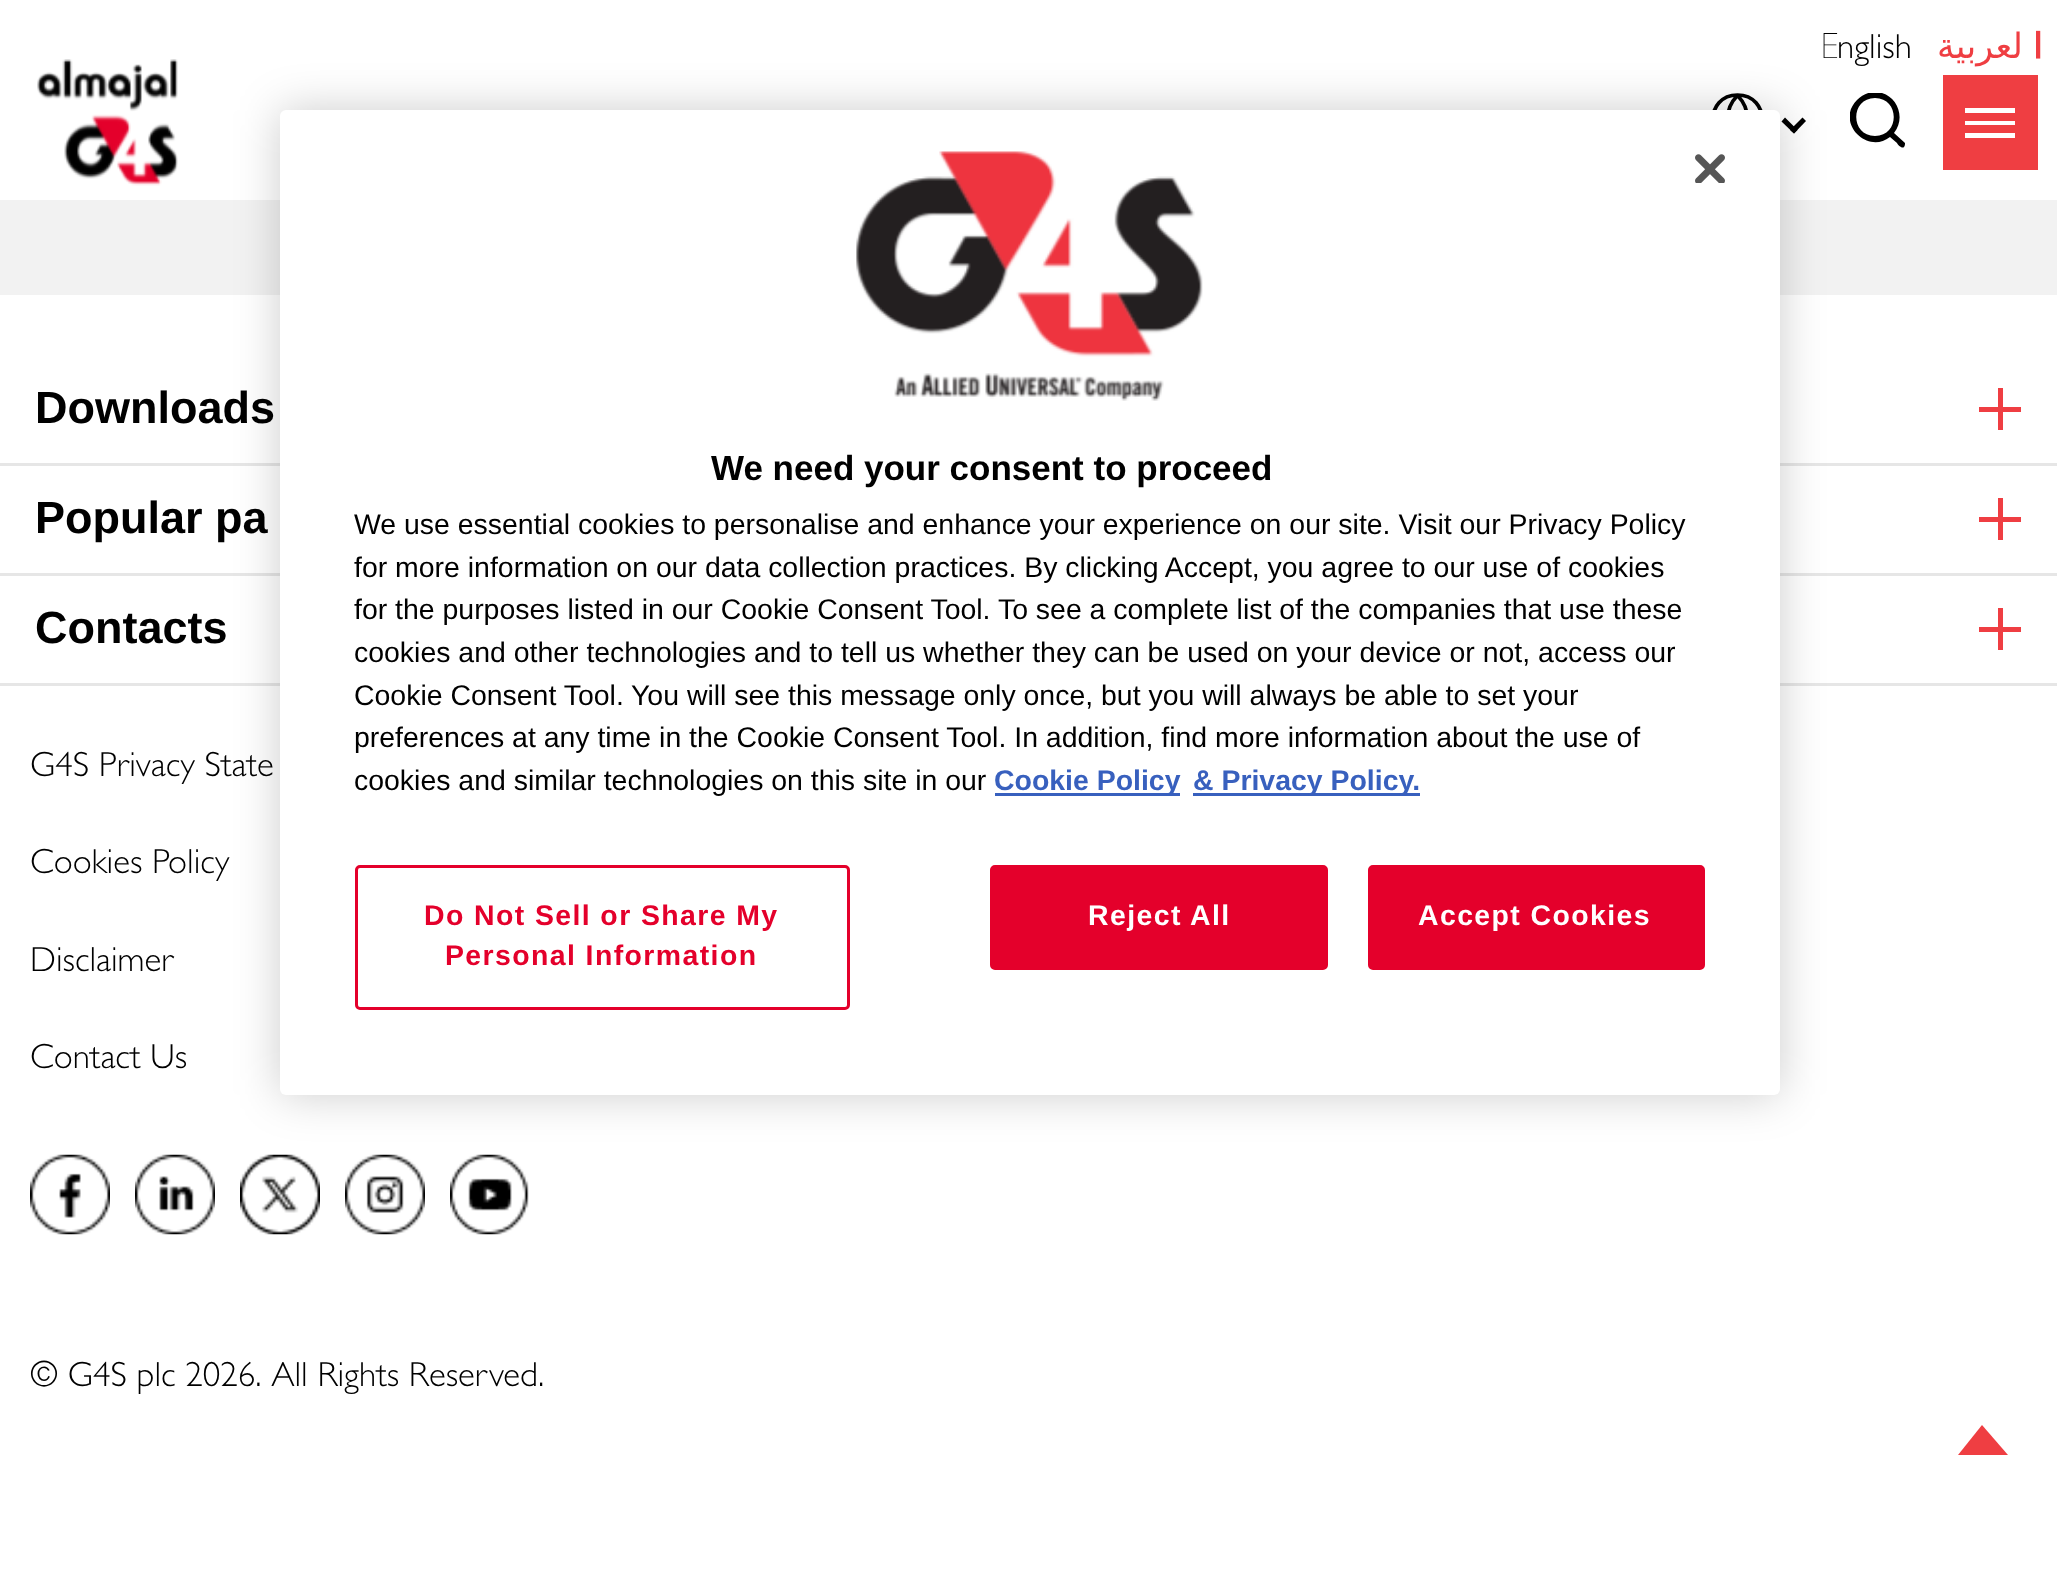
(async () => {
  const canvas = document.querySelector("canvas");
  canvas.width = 2057;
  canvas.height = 1575;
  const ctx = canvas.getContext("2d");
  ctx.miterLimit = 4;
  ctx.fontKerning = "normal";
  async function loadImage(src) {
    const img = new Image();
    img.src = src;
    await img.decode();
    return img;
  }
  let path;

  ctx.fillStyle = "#ffffff";
  ctx.fillRect(0, 0, 2057, 1575);
  path = new Path2D("M1737.5 145C1770.5 145 1770.5 95 1737.5 95C1704.5 95 1704.5 145 1737.5 145ZM1737.5 95.5C1751 109 1751 131 1737.5 144.5M1737.5 95.5C1724 109 1724 131 1737.5 144.5");
  ctx.strokeStyle = "#000000";
  ctx.lineWidth = 3.7;
  ctx.lineCap = "round";
  ctx.lineJoin = "round";
  ctx.stroke(path);
  ctx.fillStyle = "#000000";
  path = new Path2D("M1794 133.5L1781.5 121.5L1785 117.5L1797.5 130Z");
  ctx.fill(path);
  path = new Path2D("M1794 133.5L1790 130L1802.5 117.5L1806 121Z");
  ctx.fill(path);
  ctx.save();
  ctx.beginPath();
  ctx.rect(1850, 93, 55, 55);
  ctx.clip();
  path = new Path2D("M1875 92C1896 92 1907 117 1894 133L1905 143C1905 144 1905 146 1904 147C1902 149 1898 145 1897 143L1890 137C1867 155 1835 122 1857 100C1862 95 1868 92 1875 92ZM1875 98C1850 98 1850 136 1875 136C1900 136 1900 98 1875 98Z");
  ctx.fill(path, "evenodd");
  ctx.restore();
  ctx.drawImage(await loadImage("img/1.png"), 37, 59, 141, 127);
  for (const [x, y, w, h, color] of [
    [1965, 75, 50, 33, "#ef3e42"],
    [2015, 75, 23, 63, "#ef3e42"],
    [1965, 138, 73, 32, "#ef3e42"],
    [1943, 75, 22, 95, "#ef3e42"],
    [1965, 113, 50, 8, "#ef3e42"],
    [1965, 125, 50, 8, "#ef3e42"],
    [0, 200, 2057, 95, "#f2f2f2"],
    [0, 463, 2057, 3, "#e6e6e6"],
    [1998, 388, 5, 42, "#ef3e42"],
    [1979, 407, 42, 5, "#ef3e42"],
    [0, 573, 2057, 3, "#e6e6e6"],
    [1998, 498, 5, 42, "#ef3e42"],
    [1979, 517, 42, 5, "#ef3e42"],
    [0, 683, 2057, 3, "#e6e6e6"],
    [1998, 608, 5, 42, "#ef3e42"],
    [1979, 627, 42, 5, "#ef3e42"],
  ]) {
    ctx.fillStyle = color;
    ctx.fillRect(x, y, w, h);
  }
  ctx.drawImage(await loadImage("img/2.png"), 30, 1154, 80, 81);
  ctx.drawImage(await loadImage("img/3.png"), 135, 1154, 80, 81);
  ctx.drawImage(await loadImage("img/4.png"), 240, 1154, 80, 81);
  ctx.drawImage(await loadImage("img/5.png"), 345, 1154, 80, 81);
  ctx.drawImage(await loadImage("img/6.png"), 450, 1154, 79, 81);
  path = new Path2D("M2008 1455H1958L1982 1425Z");
  ctx.fill(path);
  ctx.fillStyle = "rgba(0, 0, 0, 0.2)";
  ctx.filter = "blur(22.5px)";
  ctx.beginPath();
  ctx.roundRect(280, 110, 1500, 985, 6);
  ctx.fill();
  ctx.filter = "none";
  ctx.fillStyle = "#ffffff";
  ctx.beginPath();
  ctx.roundRect(280, 110, 1500, 985, 6);
  ctx.fill();
  ctx.drawImage(await loadImage("img/7.png"), 1695, 154, 30, 29);
  ctx.drawImage(await loadImage("img/8.png"), 856, 151, 347, 250);
  ctx.fillStyle = "#3860be";
  ctx.fillRect(995, 793, 185, 3);
  ctx.fillRect(1193, 793, 227, 3);
  ctx.beginPath();
  ctx.roundRect(356.5, 866.5, 492, 142, 3.5);
  ctx.strokeStyle = "#e4002b";
  ctx.lineWidth = 3;
  ctx.lineJoin = "miter";
  ctx.stroke();
  ctx.fillStyle = "#e4002b";
  ctx.beginPath();
  ctx.roundRect(991.5, 866.5, 335, 102, 3.5);
  ctx.fill();
  ctx.stroke();
  ctx.beginPath();
  ctx.roundRect(1369.5, 866.5, 334, 102, 3.5);
  ctx.fill();
  ctx.stroke();
  ctx.font = "100 35px Noto Sans";
  ctx.fillStyle = "#000000";
  ctx.fillText("E", 1820, 58);
  ctx.font = "300 35px Gill Sans";
  ctx.fillText("nglish", 1837, 58);
  ctx.direction = "rtl";
  ctx.font = "35px DejaVu Sans";
  ctx.fillStyle = "#ef3e42";
  ctx.fillText("لعربية", 2023, 58);
  ctx.font = "900 35px Noto Sans";
  ctx.fillText("ا", 2043, 58);
  ctx.direction = "ltr";
  ctx.font = "bold 45px Liberation Sans";
  ctx.fillStyle = "#000000";
  for (const [text, x, y] of [
    ["Downloads", 35, 423],
    ["Popular pa", 35, 533],
    ["Contacts", 35, 643],
  ]) {
    ctx.fillText(text, x, y);
  }
  ctx.font = "300 35px Gill Sans";
  for (const [text, x, y] of [
    ["G4S Privacy State", 30, 776],
    ["Cookies Policy", 30, 873],
    ["Disclaimer", 30, 971],
    ["Contact Us", 30, 1068],
    ["© G4S plc 2026. All Rights Reserved.", 30, 1386],
  ]) {
    ctx.fillText(text, x, y);
  }
  ctx.font = "bold 35px Liberation Sans";
  ctx.fillText("We need your consent to proceed", 711, 480);
  ctx.font = "28.45px Liberation Sans";
  for (const [text, x, y] of [
    ["We use essential cookies to personalise and enhance your experience on our site. Visit our Privacy Policy", 354, 534],
    ["for more information on our data collection practices. By clicking Accept, you agree to our use of cookies", 354, 577],
    ["for the purposes listed in our Cookie Consent Tool. To see a complete list of the companies that use these", 354, 619],
    ["cookies and other technologies and to tell us whether they can be used on your device or not, access our", 354, 662],
    ["Cookie Consent Tool.", 354, 705],
    ["You will see this message only once, but you will always be able to set your", 631, 705],
    ["preferences at any time in the Cookie Consent Tool. In addition, find more information about the use of", 354, 747],
    ["cookies and similar technologies on this site in our", 354, 790],
  ]) {
    ctx.fillText(text, x, y);
  }
  ctx.font = "bold 28.45px Liberation Sans";
  ctx.fillStyle = "#3860be";
  ctx.fillText("Cookie Policy", 994, 790);
  ctx.fillText("& Privacy Policy.", 1193, 790);
  ctx.letterSpacing = "1.4px";
  ctx.fillStyle = "#e4002b";
  ctx.fillText("Do Not Sell or Share My", 424, 925);
  ctx.fillText("Personal Information", 445, 965);
  ctx.fillStyle = "#ffffff";
  ctx.fillText("Reject All", 1088, 925);
  ctx.fillText("Accept Cookies", 1418, 925);
})();
